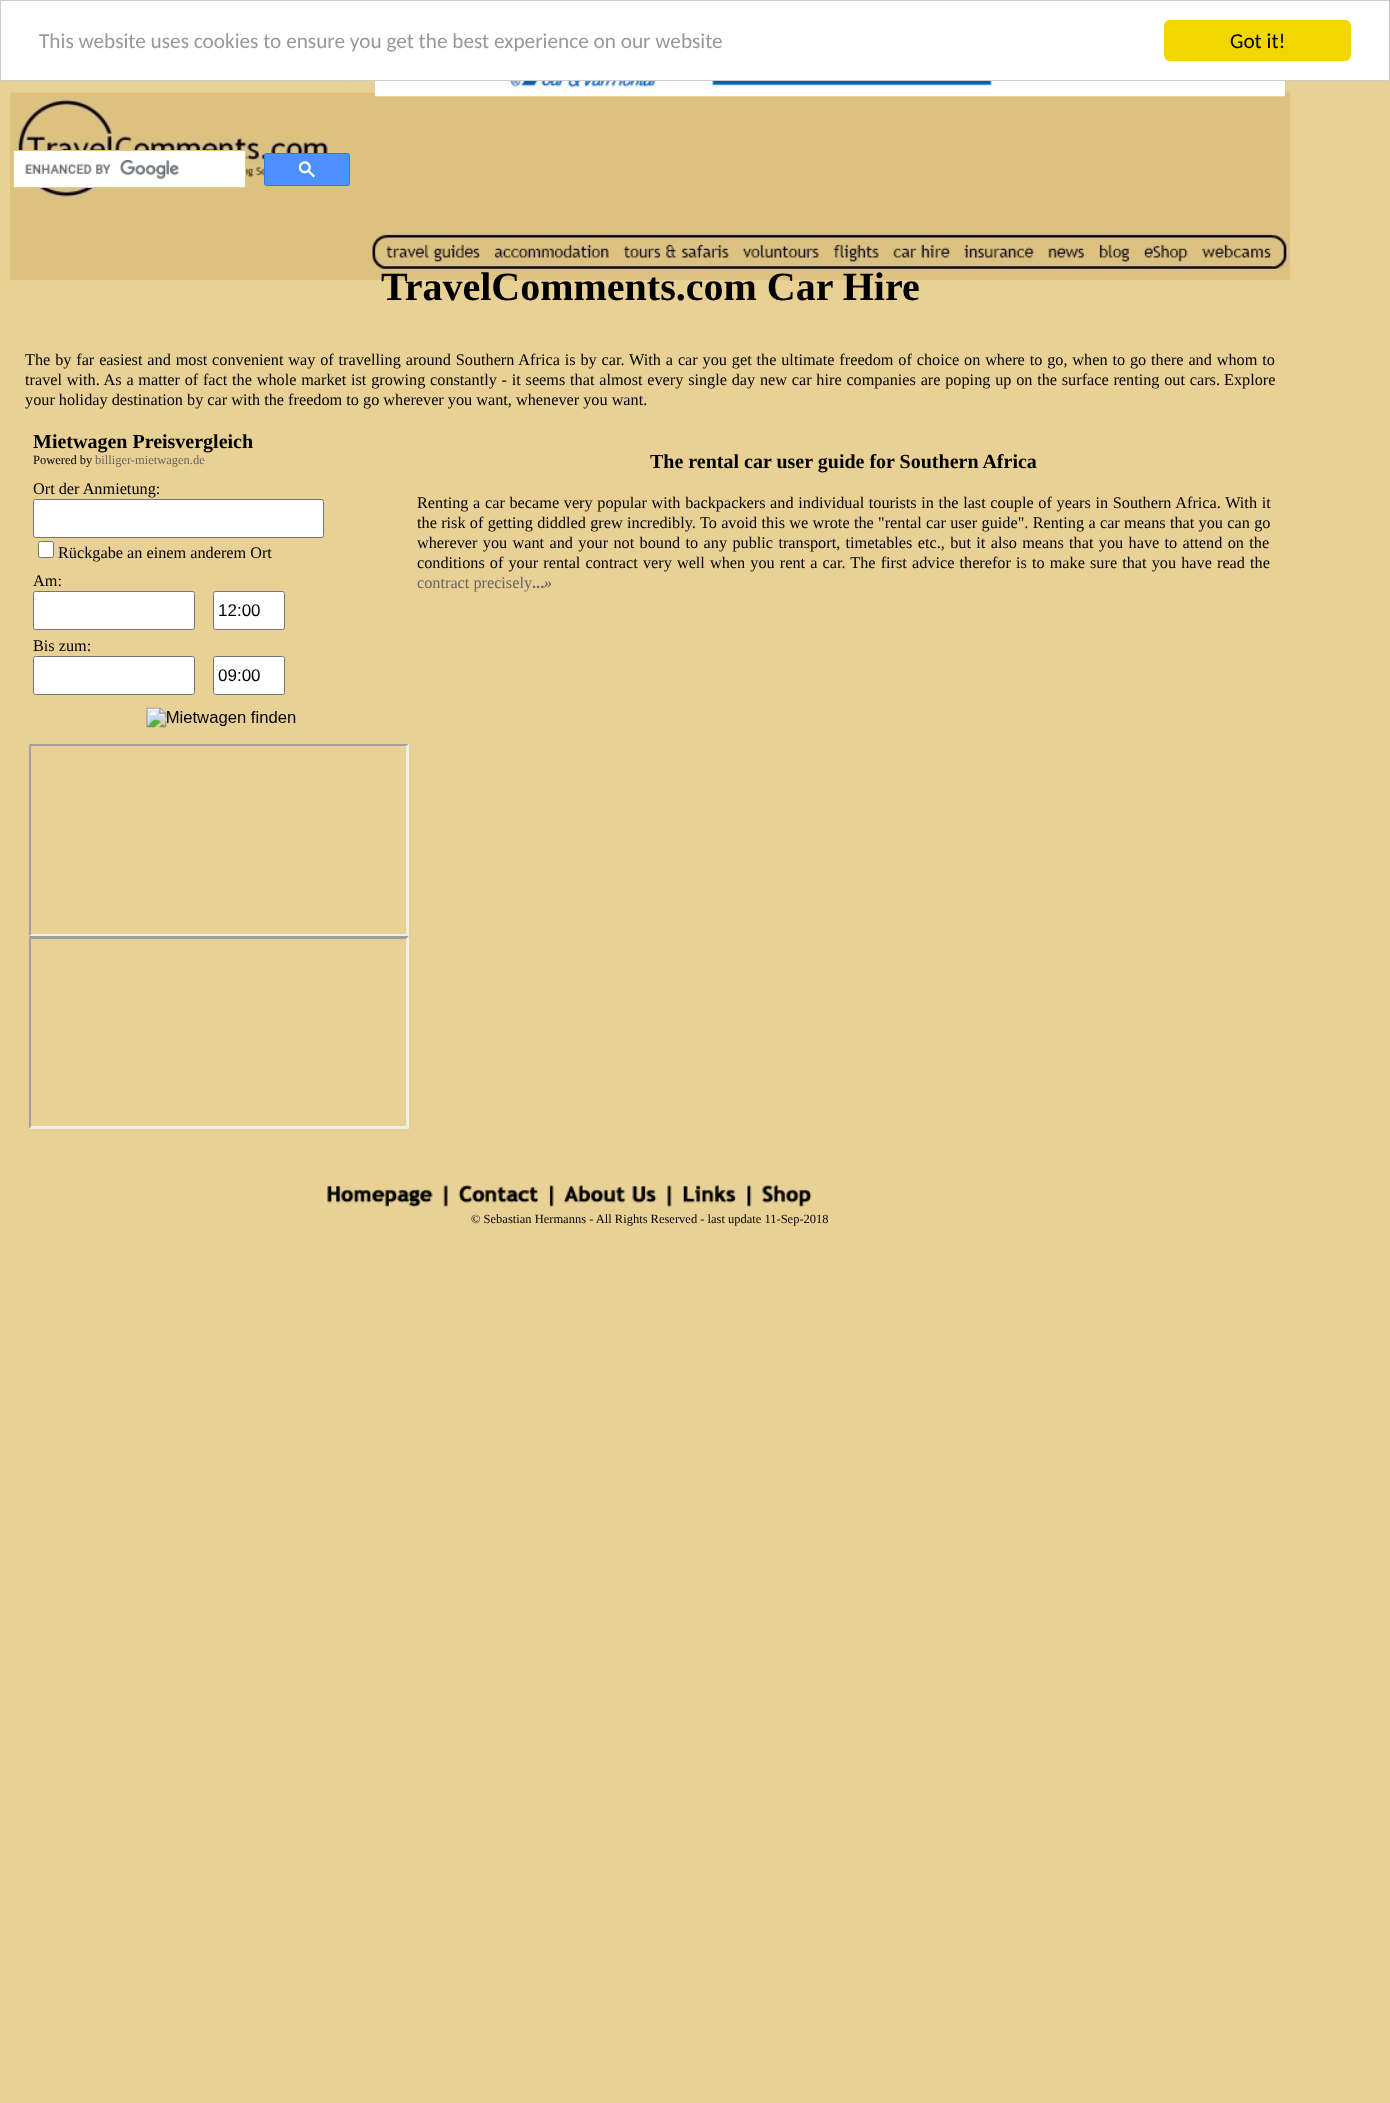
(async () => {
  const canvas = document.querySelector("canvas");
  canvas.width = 1390;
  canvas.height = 2103;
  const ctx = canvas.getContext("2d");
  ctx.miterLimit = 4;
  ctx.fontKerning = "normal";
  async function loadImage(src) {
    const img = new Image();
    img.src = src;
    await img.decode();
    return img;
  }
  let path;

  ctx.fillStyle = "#e9d196";
  ctx.fillRect(0, 0, 1390, 2103);
  ctx.fillStyle = "#ffffff";
  ctx.beginPath();
  ctx.rect(0.5, 0.5, 1389, 80);
  ctx.fill();
  ctx.strokeStyle = "#cccccc";
  ctx.stroke();
  ctx.fillStyle = "#f1d600";
  ctx.beginPath();
  ctx.roundRect(1164, 20, 187, 41, 6);
  ctx.fill();
  ctx.drawImage(await loadImage("img/2.png"), 10, 92, 1280, 188);
  ctx.drawImage(await loadImage("img/1.png"), 375, 81, 910, 16);
  ctx.fillStyle = "#ffffff";
  ctx.beginPath();
  ctx.rect(13.5, 150.5, 232, 37);
  ctx.fill();
  ctx.strokeStyle = "#e6c884";
  ctx.stroke();
  ctx.drawImage(await loadImage("img/3.png"), 25, 160, 154, 19);
  ctx.fillStyle = "#4d90fe";
  ctx.beginPath();
  ctx.roundRect(264.5, 153.5, 85, 32, 2);
  ctx.fill();
  ctx.strokeStyle = "#3079ed";
  ctx.stroke();
  ctx.drawImage(await loadImage("img/4.png"), 299, 161, 16, 17);
  ctx.fillStyle = "#ffffff";
  ctx.beginPath();
  ctx.roundRect(33.5, 499.5, 290, 38, 2);
  ctx.fill();
  ctx.strokeStyle = "#767676";
  ctx.stroke();
  ctx.beginPath();
  ctx.roundRect(38.5, 541.5, 15, 16, 2);
  ctx.fill();
  ctx.stroke();
  ctx.beginPath();
  ctx.roundRect(33.5, 591.5, 161, 38, 2);
  ctx.fill();
  ctx.stroke();
  ctx.beginPath();
  ctx.roundRect(213.5, 591.5, 71, 38, 2);
  ctx.fill();
  ctx.stroke();
  ctx.beginPath();
  ctx.roundRect(33.5, 656.5, 161, 38, 2);
  ctx.fill();
  ctx.stroke();
  ctx.beginPath();
  ctx.roundRect(213.5, 656.5, 71, 38, 2);
  ctx.fill();
  ctx.stroke();
  ctx.drawImage(await loadImage("img/5.png"), 146, 707, 150, 21);
  ctx.fillStyle = "#9f9f9f";
  path = new Path2D("M29 744H409L406 746H31Z");
  ctx.fill(path);
  ctx.fillStyle = "#eeeeee";
  path = new Path2D("M409 744V936L406 934V746Z");
  ctx.fill(path);
  path = new Path2D("M409 936H29L31 934H406Z");
  ctx.fill(path);
  ctx.fillStyle = "#9f9f9f";
  path = new Path2D("M29 936V744L31 746V934Z");
  ctx.fill(path);
  path = new Path2D("M29 936H409L406 939H31Z");
  ctx.fill(path);
  ctx.fillStyle = "#eeeeee";
  path = new Path2D("M409 936V1129L406 1126V939Z");
  ctx.fill(path);
  path = new Path2D("M409 1129H29L31 1126H406Z");
  ctx.fill(path);
  ctx.fillStyle = "#9f9f9f";
  path = new Path2D("M29 1129V936L31 939V1126Z");
  ctx.fill(path);
  ctx.drawImage(await loadImage("img/6.png"), 327, 1185, 485, 22);
  ctx.font = "21.25px Carlito";
  ctx.fillStyle = "#999999";
  ctx.fillText("This website uses cookies to ensure you get the best experience on our website", 39, 48);
  ctx.fillStyle = "#000000";
  ctx.fillText("Got it!", 1230, 48);
  ctx.font = "bold 40px Liberation Serif";
  ctx.fillText("TravelComments.com Car Hire", 381, 300);
  ctx.wordSpacing = "0.8px";
  ctx.font = "16.25px Liberation Serif";
  ctx.fillText("The by far easiest and most convenient way of travelling around Southern Africa is by car. With a car you get the ultimate freedom of choice on where to go, when to go there and whom to", 25, 365);
  ctx.wordSpacing = "0.7px";
  ctx.fillText("travel with. As a matter of fact the whole market ist growing constantly - it seems that almost every single day new car hire companies are poping up on the surface renting out cars.", 25, 385);
  ctx.wordSpacing = "0px";
  ctx.fillText("Explore", 1224, 385);
  ctx.fillText("your holiday destination by car with the freedom to go wherever you want, whenever you want.", 25, 405);
  ctx.font = "bold 20px Liberation Serif";
  ctx.fillText("Mietwagen Preisvergleich", 33, 448);
  ctx.font = "12.5px Liberation Serif";
  ctx.fillText("Powered by", 33, 464);
  ctx.fillStyle = "#666666";
  ctx.fillText("billiger-mietwagen.de", 95, 464);
  ctx.font = "16.25px Liberation Serif";
  ctx.fillStyle = "#000000";
  for (const [text, x, y] of [
    ["Ort der Anmietung:", 33, 494],
    ["Rückgabe an einem anderem Ort", 58, 558],
    ["Am:", 33, 586],
  ]) {
    ctx.fillText(text, x, y);
  }
  ctx.font = "17px Liberation Sans";
  ctx.fillText("12:00", 218, 616);
  ctx.font = "16.25px Liberation Serif";
  ctx.fillText("Bis zum:", 33, 651);
  ctx.font = "17px Liberation Sans";
  ctx.fillText("09:00", 218, 681);
  ctx.font = "bold 20px Liberation Serif";
  ctx.fillText("The rental car user guide for Southern Africa", 650, 468);
  ctx.wordSpacing = "0.6px";
  ctx.font = "16.25px Liberation Serif";
  ctx.fillText("Renting a car became very popular with backpackers and individual tourists in the last couple of years in Southern Africa. With it", 417, 508);
  ctx.wordSpacing = "0.25px";
  ctx.fillText("the risk of getting diddled grew incredibly. To avoid this we wrote the \"rental car user guide\". Renting a car means that you can go", 417, 528);
  ctx.wordSpacing = "1.3px";
  ctx.fillText("wherever you want and your not bound to any public transport, timetables etc., but it also means that you have to attend on the", 417, 548);
  ctx.wordSpacing = "1.05px";
  ctx.fillText("conditions of your rental contract very well when you rent a car. The first advice therefor is to make sure that you have read the", 417, 568);
  ctx.wordSpacing = "0px";
  ctx.fillStyle = "#666666";
  ctx.fillText("contract precisely", 417, 588);
  ctx.font = "bold 16.25px Liberation Serif";
  ctx.fillText("...", 532, 588);
  ctx.font = "italic bold 16.25px Liberation Serif";
  ctx.fillText("»", 544, 588);
  ctx.font = "12.5px Liberation Serif";
  ctx.fillStyle = "#000000";
  ctx.fillText("© Sebastian Hermanns - All Rights Reserved - last update 11-Sep-2018", 471, 1223);
})();
